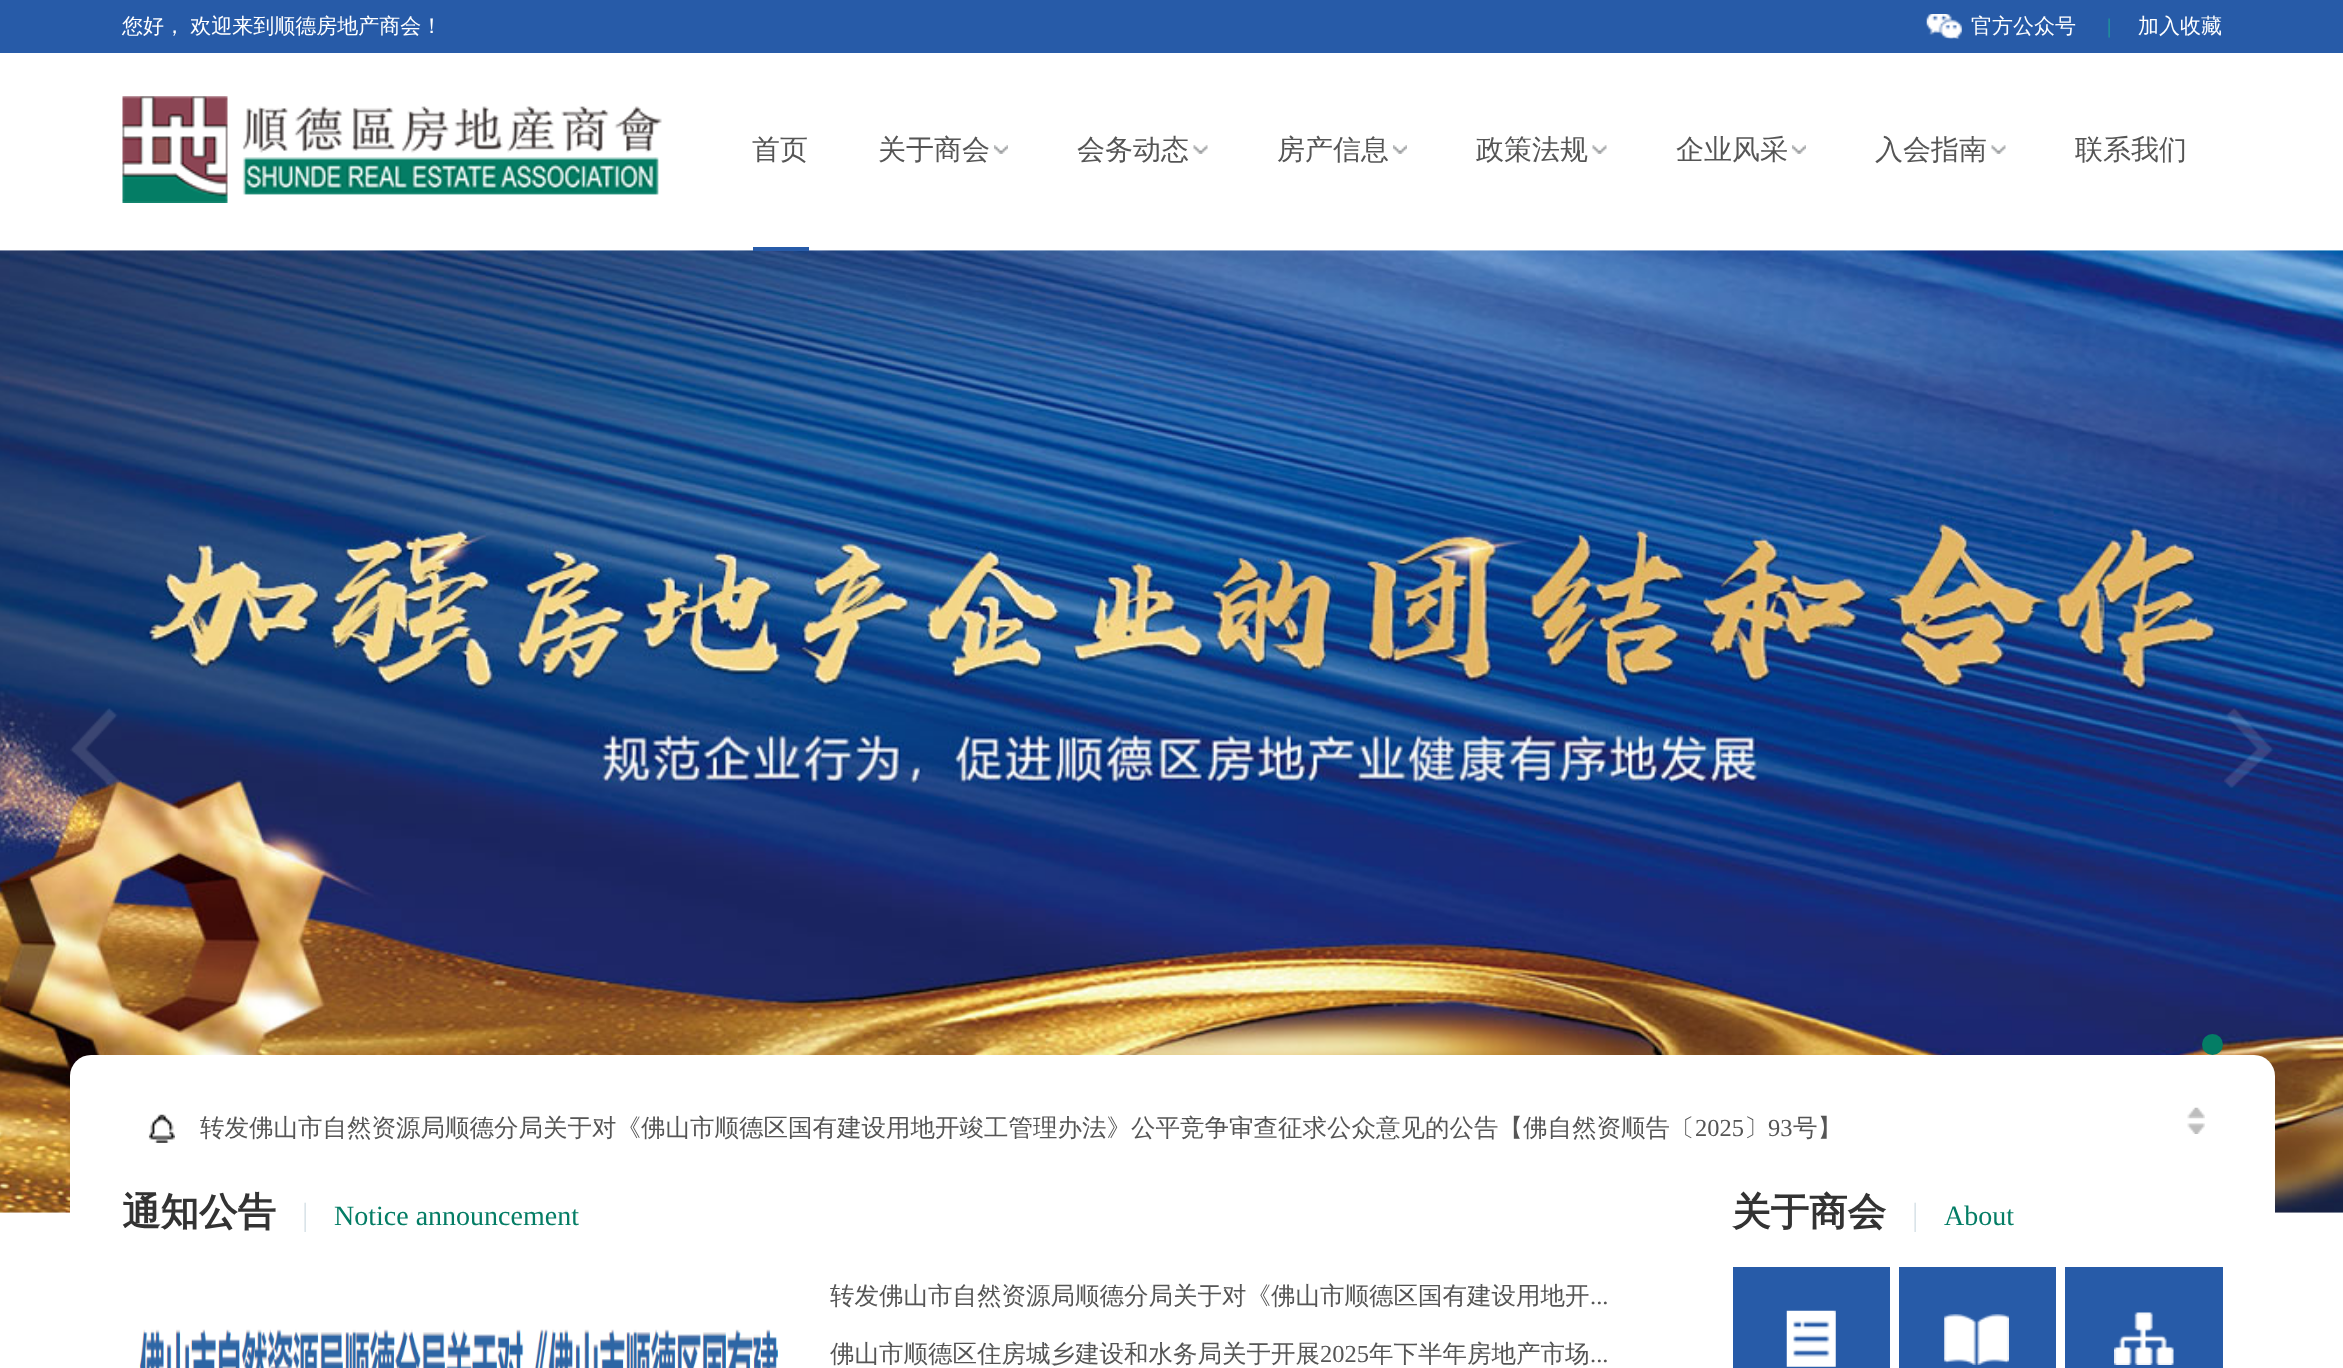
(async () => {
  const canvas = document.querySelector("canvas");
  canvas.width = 2343;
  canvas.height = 1368;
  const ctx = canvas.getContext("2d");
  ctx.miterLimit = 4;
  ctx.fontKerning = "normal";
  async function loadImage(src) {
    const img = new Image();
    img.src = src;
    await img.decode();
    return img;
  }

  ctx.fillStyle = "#ffffff";
  ctx.fillRect(0, 0, 2343, 1368);
  ctx.fillStyle = "#275ba8";
  ctx.fillRect(0, 0, 2343, 53);
  ctx.drawImage(await loadImage("img/1.png"), 1926, 14, 36, 25);
  ctx.drawImage(await loadImage("img/2.png"), 122, 96, 540, 107);
  ctx.drawImage(await loadImage("img/7.png"), 0, 250, 2343, 963);
  ctx.fillRect(753, 247, 56, 4);
  ctx.drawImage(await loadImage("img/3.png"), 994, 145, 14, 9);
  ctx.drawImage(await loadImage("img/4.png"), 1193, 145, 15, 9);
  ctx.drawImage(await loadImage("img/3.png"), 1393, 145, 14, 9);
  ctx.drawImage(await loadImage("img/5.png"), 1592, 145, 15, 9);
  ctx.drawImage(await loadImage("img/6.png"), 1792, 145, 14, 9);
  ctx.drawImage(await loadImage("img/5.png"), 1991, 145, 15, 9);
  ctx.drawImage(await loadImage("img/8.png"), 70, 708, 49, 80);
  ctx.drawImage(await loadImage("img/9.png"), 2224, 708, 49, 80);
  ctx.fillStyle = "#047d65";
  ctx.beginPath();
  ctx.arc(2212.5, 1044.5, 10.5, 0, Math.PI * 2);
  ctx.fill();
  ctx.fillStyle = "#ffffff";
  ctx.beginPath();
  ctx.roundRect(70, 1055, 2205, 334, 21);
  ctx.fill();
  ctx.drawImage(await loadImage("img/10.png"), 148, 1114, 27, 29);
  ctx.drawImage(await loadImage("img/11.png"), 2187, 1107, 18, 12);
  ctx.drawImage(await loadImage("img/12.png"), 2187, 1123, 18, 11);
  ctx.drawImage(await loadImage("img/13.png"), 139, 1329, 639, 39);
  ctx.fillStyle = "#275ba8";
  ctx.fillRect(1733, 1267, 157, 101);
  ctx.drawImage(await loadImage("img/14.png"), 1786, 1310, 50, 57);
  ctx.fillRect(1899, 1267, 157, 101);
  ctx.drawImage(await loadImage("img/15.png"), 1944, 1314, 65, 51);
  ctx.fillRect(2065, 1267, 158, 101);
  ctx.drawImage(await loadImage("img/16.png"), 2114, 1312, 60, 53);
  ctx.wordSpacing = "-1px";
  ctx.font = "500 21px WenQuanYi Zen Hei";
  ctx.fillStyle = "#ffffff";
  ctx.fillText("您好， 欢迎来到顺德房地产商会！", 122, 33);
  ctx.wordSpacing = "0px";
  ctx.fillText("官方公众号", 1971, 33);
  ctx.font = "21px Liberation Serif";
  ctx.fillStyle = "#1ea696";
  ctx.fillText("|", 2107, 33);
  ctx.font = "500 21px WenQuanYi Zen Hei";
  ctx.fillStyle = "#ffffff";
  ctx.fillText("加入收藏", 2138, 33);
  ctx.font = "500 28px WenQuanYi Zen Hei";
  ctx.fillStyle = "#555555";
  for (const [text, x, y] of [
    ["首页", 752, 159],
    ["关于商会", 878, 159],
    ["会务动态", 1077, 159],
    ["房产信息", 1277, 159],
    ["政策法规", 1476, 159],
    ["企业风采", 1676, 159],
    ["入会指南", 1875, 159],
    ["联系我们", 2075, 159],
  ]) {
    ctx.fillText(text, x, y);
  }
  ctx.font = "500 24.5px WenQuanYi Zen Hei";
  ctx.fillText("转发佛山市自然资源局顺德分局关于对《佛山市顺德区国有建设用地开竣工管理办法》公平竞争审查征求公众意见的公告【佛自然资顺告〔", 200, 1136);
  ctx.font = "24.5px Liberation Serif";
  ctx.fillText("2025", 1695, 1136);
  ctx.font = "500 24.5px WenQuanYi Zen Hei";
  ctx.fillText("〕", 1744, 1136);
  ctx.font = "24.5px Liberation Serif";
  ctx.fillText("93", 1768, 1136);
  ctx.font = "500 24.5px WenQuanYi Zen Hei";
  ctx.fillText("号】", 1793, 1136);
  ctx.font = "bold 38.5px WenQuanYi Zen Hei";
  ctx.fillStyle = "#333333";
  ctx.fillText("通知公告", 122, 1225);
  ctx.font = "32px Liberation Serif";
  ctx.fillStyle = "#dae4e9";
  ctx.fillText("|", 302, 1225);
  ctx.font = "28px Liberation Serif";
  ctx.fillStyle = "#047d65";
  ctx.fillText("Notice announcement", 334, 1225);
  ctx.font = "500 24.5px WenQuanYi Zen Hei";
  ctx.fillStyle = "#555555";
  ctx.fillText("转发佛山市自然资源局顺德分局关于对《佛山市顺德区国有建设用地开", 830, 1304);
  ctx.font = "24.5px Liberation Serif";
  ctx.fillText("...", 1590, 1304);
  ctx.font = "500 24.5px WenQuanYi Zen Hei";
  ctx.fillText("佛山市顺德区住房城乡建设和水务局关于开展", 830, 1362);
  ctx.font = "24.5px Liberation Serif";
  ctx.fillText("2025", 1320, 1362);
  ctx.font = "500 24.5px WenQuanYi Zen Hei";
  ctx.fillText("年下半年房地产市场", 1369, 1362);
  ctx.font = "24.5px Liberation Serif";
  ctx.fillText("...", 1590, 1362);
  ctx.font = "bold 38.5px WenQuanYi Zen Hei";
  ctx.fillStyle = "#333333";
  ctx.fillText("关于商会", 1732, 1225);
  ctx.font = "32px Liberation Serif";
  ctx.fillStyle = "#dae4e9";
  ctx.fillText("|", 1912, 1225);
  ctx.font = "28px Liberation Serif";
  ctx.fillStyle = "#047d65";
  ctx.fillText("About", 1944, 1225);
})();
